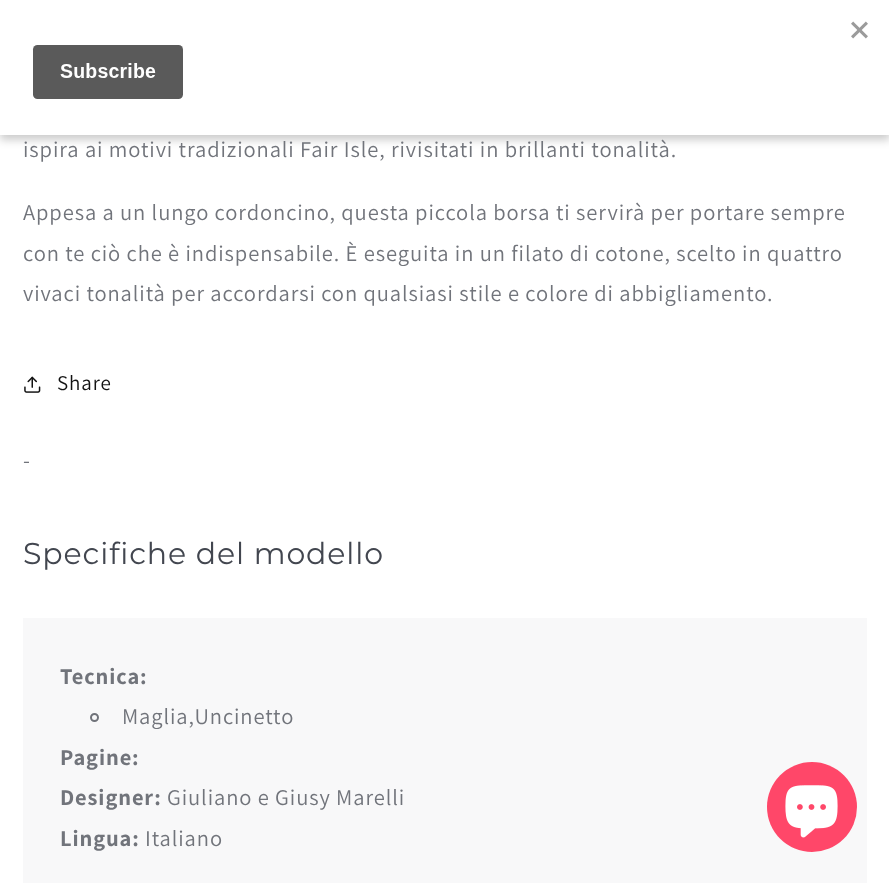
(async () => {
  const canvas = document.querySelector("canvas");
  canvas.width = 889;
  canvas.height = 883;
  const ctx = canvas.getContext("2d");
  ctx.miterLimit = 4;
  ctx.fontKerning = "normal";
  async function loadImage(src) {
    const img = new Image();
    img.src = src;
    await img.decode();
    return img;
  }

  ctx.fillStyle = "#ffffff";
  ctx.fillRect(0, 0, 889, 883);
  ctx.fillStyle = "rgba(0, 0, 0, 0.2)";
  ctx.filter = "blur(4.5px)";
  ctx.beginPath();
  ctx.rect(0, 5, 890, 135);
  ctx.fill();
  ctx.filter = "none";
  ctx.fillStyle = "#ffffff";
  ctx.fillRect(0, 0, 889, 135);
  ctx.drawImage(await loadImage("img/1.png"), 32, 21, 836, 78);
  ctx.drawImage(await loadImage("img/2.png"), 24, 376, 17, 17);
  ctx.fillStyle = "#f8f8f9";
  ctx.fillRect(23, 618, 844, 265);
  ctx.beginPath();
  ctx.arc(94.5, 717.5, 3.5, 0, Math.PI * 2);
  ctx.strokeStyle = "#70737a";
  ctx.lineWidth = 2;
  ctx.stroke();
  ctx.fillStyle = "#ff4769";
  ctx.beginPath();
  ctx.arc(812, 807, 45, 0, Math.PI * 2);
  ctx.fill();
  ctx.drawImage(await loadImage("img/3.png"), 785, 785, 53, 53);
  ctx.letterSpacing = "0.9px";
  ctx.font = "22.5px Assistant";
  ctx.fillStyle = "#71747b";
  for (const [text, x, y] of [
    ["ispira ai motivi tradizionali Fair Isle, rivisitati in brillanti tonalità.", 23, 157],
    ["Appesa a un lungo cordoncino, questa piccola borsa ti servirà per portare sempre", 23, 220],
    ["con te ciò che è indispensabile. È eseguita in un filato di cotone, scelto in quattro", 23, 261],
    ["vivaci tonalità per accordarsi con qualsiasi stile e colore di abbigliamento.", 23, 301],
  ]) {
    ctx.fillText(text, x, y);
  }
  ctx.font = "21px Assistant";
  ctx.fillStyle = "#121212";
  ctx.fillText("Share", 57, 390);
  ctx.font = "22.5px Assistant";
  ctx.fillStyle = "#71747b";
  ctx.fillText("-", 23, 468);
  ctx.font = "30px Montserrat";
  ctx.fillStyle = "#42464f";
  ctx.fillText("Specifiche del modello", 23, 564);
  ctx.font = "bold 22.5px Assistant";
  ctx.fillStyle = "#71747b";
  ctx.fillText("Tecnica:", 60, 684);
  ctx.font = "22.5px Assistant";
  ctx.fillText("Maglia,Uncinetto", 122, 724);
  ctx.font = "bold 22.5px Assistant";
  ctx.fillText("Pagine:", 60, 765);
  ctx.fillText("Designer:", 60, 805);
  ctx.font = "22.5px Assistant";
  ctx.fillText("Giuliano e Giusy Marelli", 167, 805);
  ctx.font = "bold 22.5px Assistant";
  ctx.fillText("Lingua:", 60, 846);
  ctx.font = "22.5px Assistant";
  ctx.fillText("Italiano", 145, 846);
})();
